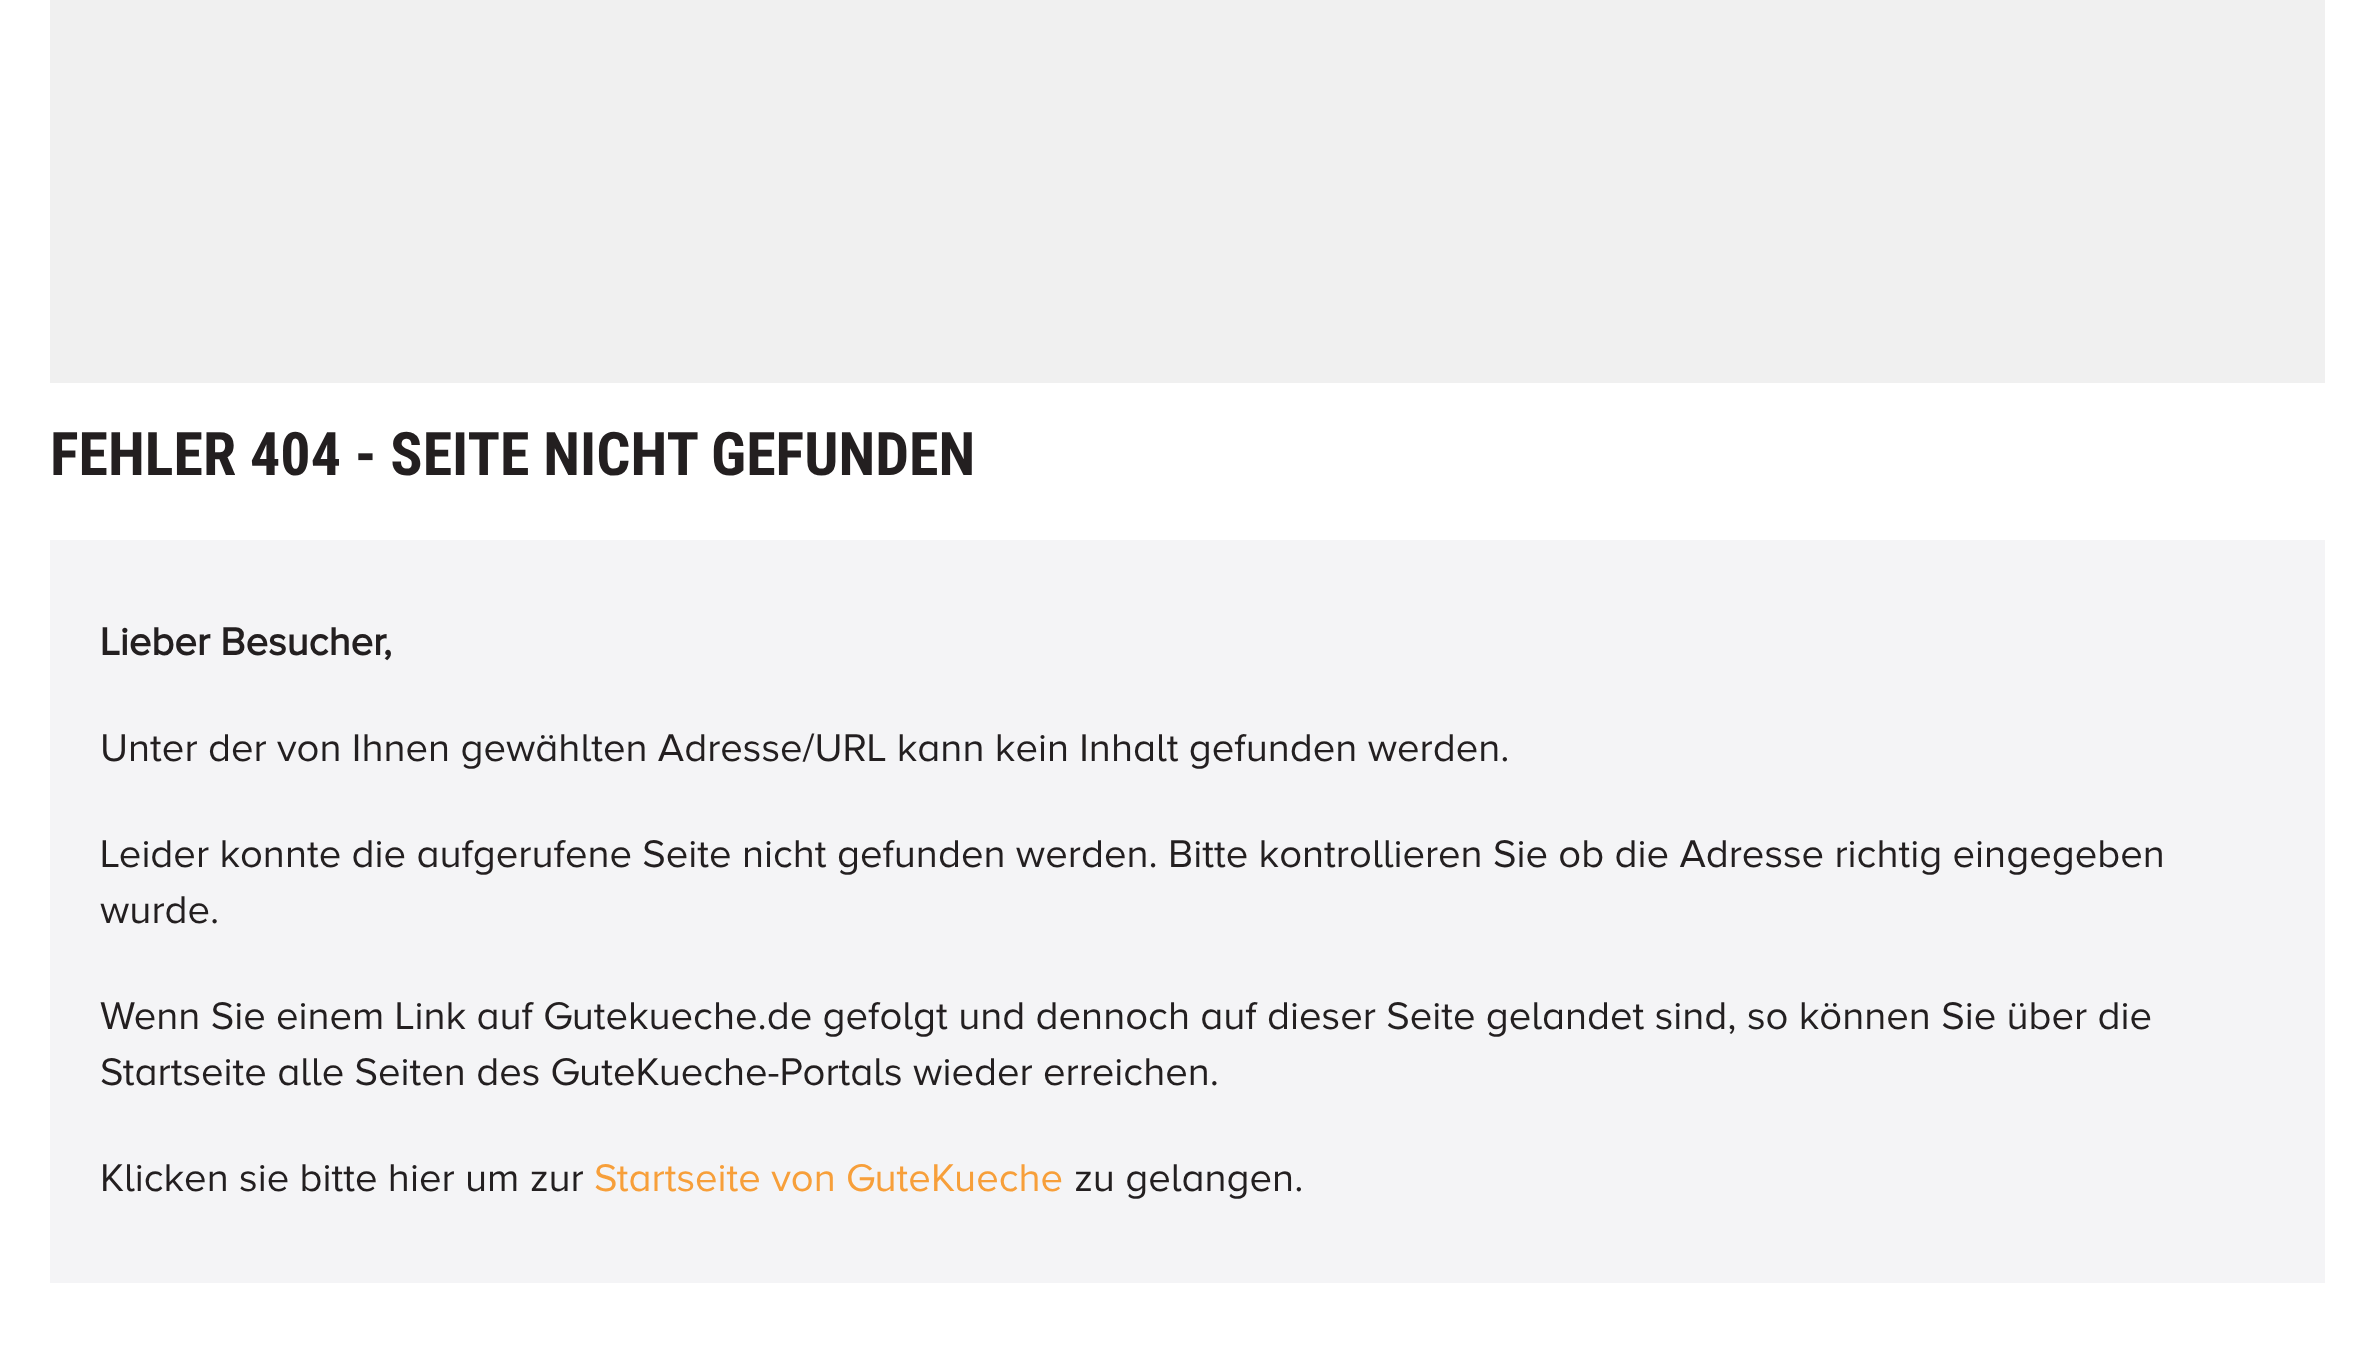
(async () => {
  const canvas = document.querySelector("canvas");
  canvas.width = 2374;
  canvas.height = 1360;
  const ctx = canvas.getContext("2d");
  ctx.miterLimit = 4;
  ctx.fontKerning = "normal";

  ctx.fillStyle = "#ffffff";
  ctx.fillRect(0, 0, 2374, 1360);
  ctx.fillStyle = "#f0f0f0";
  ctx.fillRect(50, 0, 2275, 383);
  ctx.fillStyle = "#f4f4f6";
  ctx.fillRect(50, 540, 2275, 743);
  ctx.font = "bold 60px Roboto Condensed";
  ctx.fillStyle = "#231f20";
  ctx.fillText("FEHLER 404 - SEITE NICHT GEFUNDEN", 50, 475);
  ctx.font = "bold 40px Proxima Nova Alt";
  ctx.fillText("Lieber Besucher,", 100, 655);
  ctx.font = "40px Proxima Nova Alt";
  for (const [text, x, y] of [
    ["Unter der von Ihnen gewählten Adresse/URL kann kein Inhalt gefunden werden.", 100, 761],
    ["Leider konnte die aufgerufene Seite nicht gefunden werden. Bitte kontrollieren Sie ob die Adresse richtig eingegeben", 100, 867],
    ["wurde.", 100, 923],
    ["Wenn Sie einem Link auf Gutekueche.de gefolgt und dennoch auf dieser Seite gelandet sind, so können Sie über die", 100, 1029],
    ["Startseite alle Seiten des GuteKueche-Portals wieder erreichen.", 100, 1085],
    ["Klicken sie bitte hier um zur", 100, 1191],
  ]) {
    ctx.fillText(text, x, y);
  }
  ctx.fillStyle = "#f79f3a";
  ctx.fillText("Startseite von GuteKueche", 594, 1191);
  ctx.fillStyle = "#231f20";
  ctx.fillText("zu gelangen.", 1074, 1191);
})();
